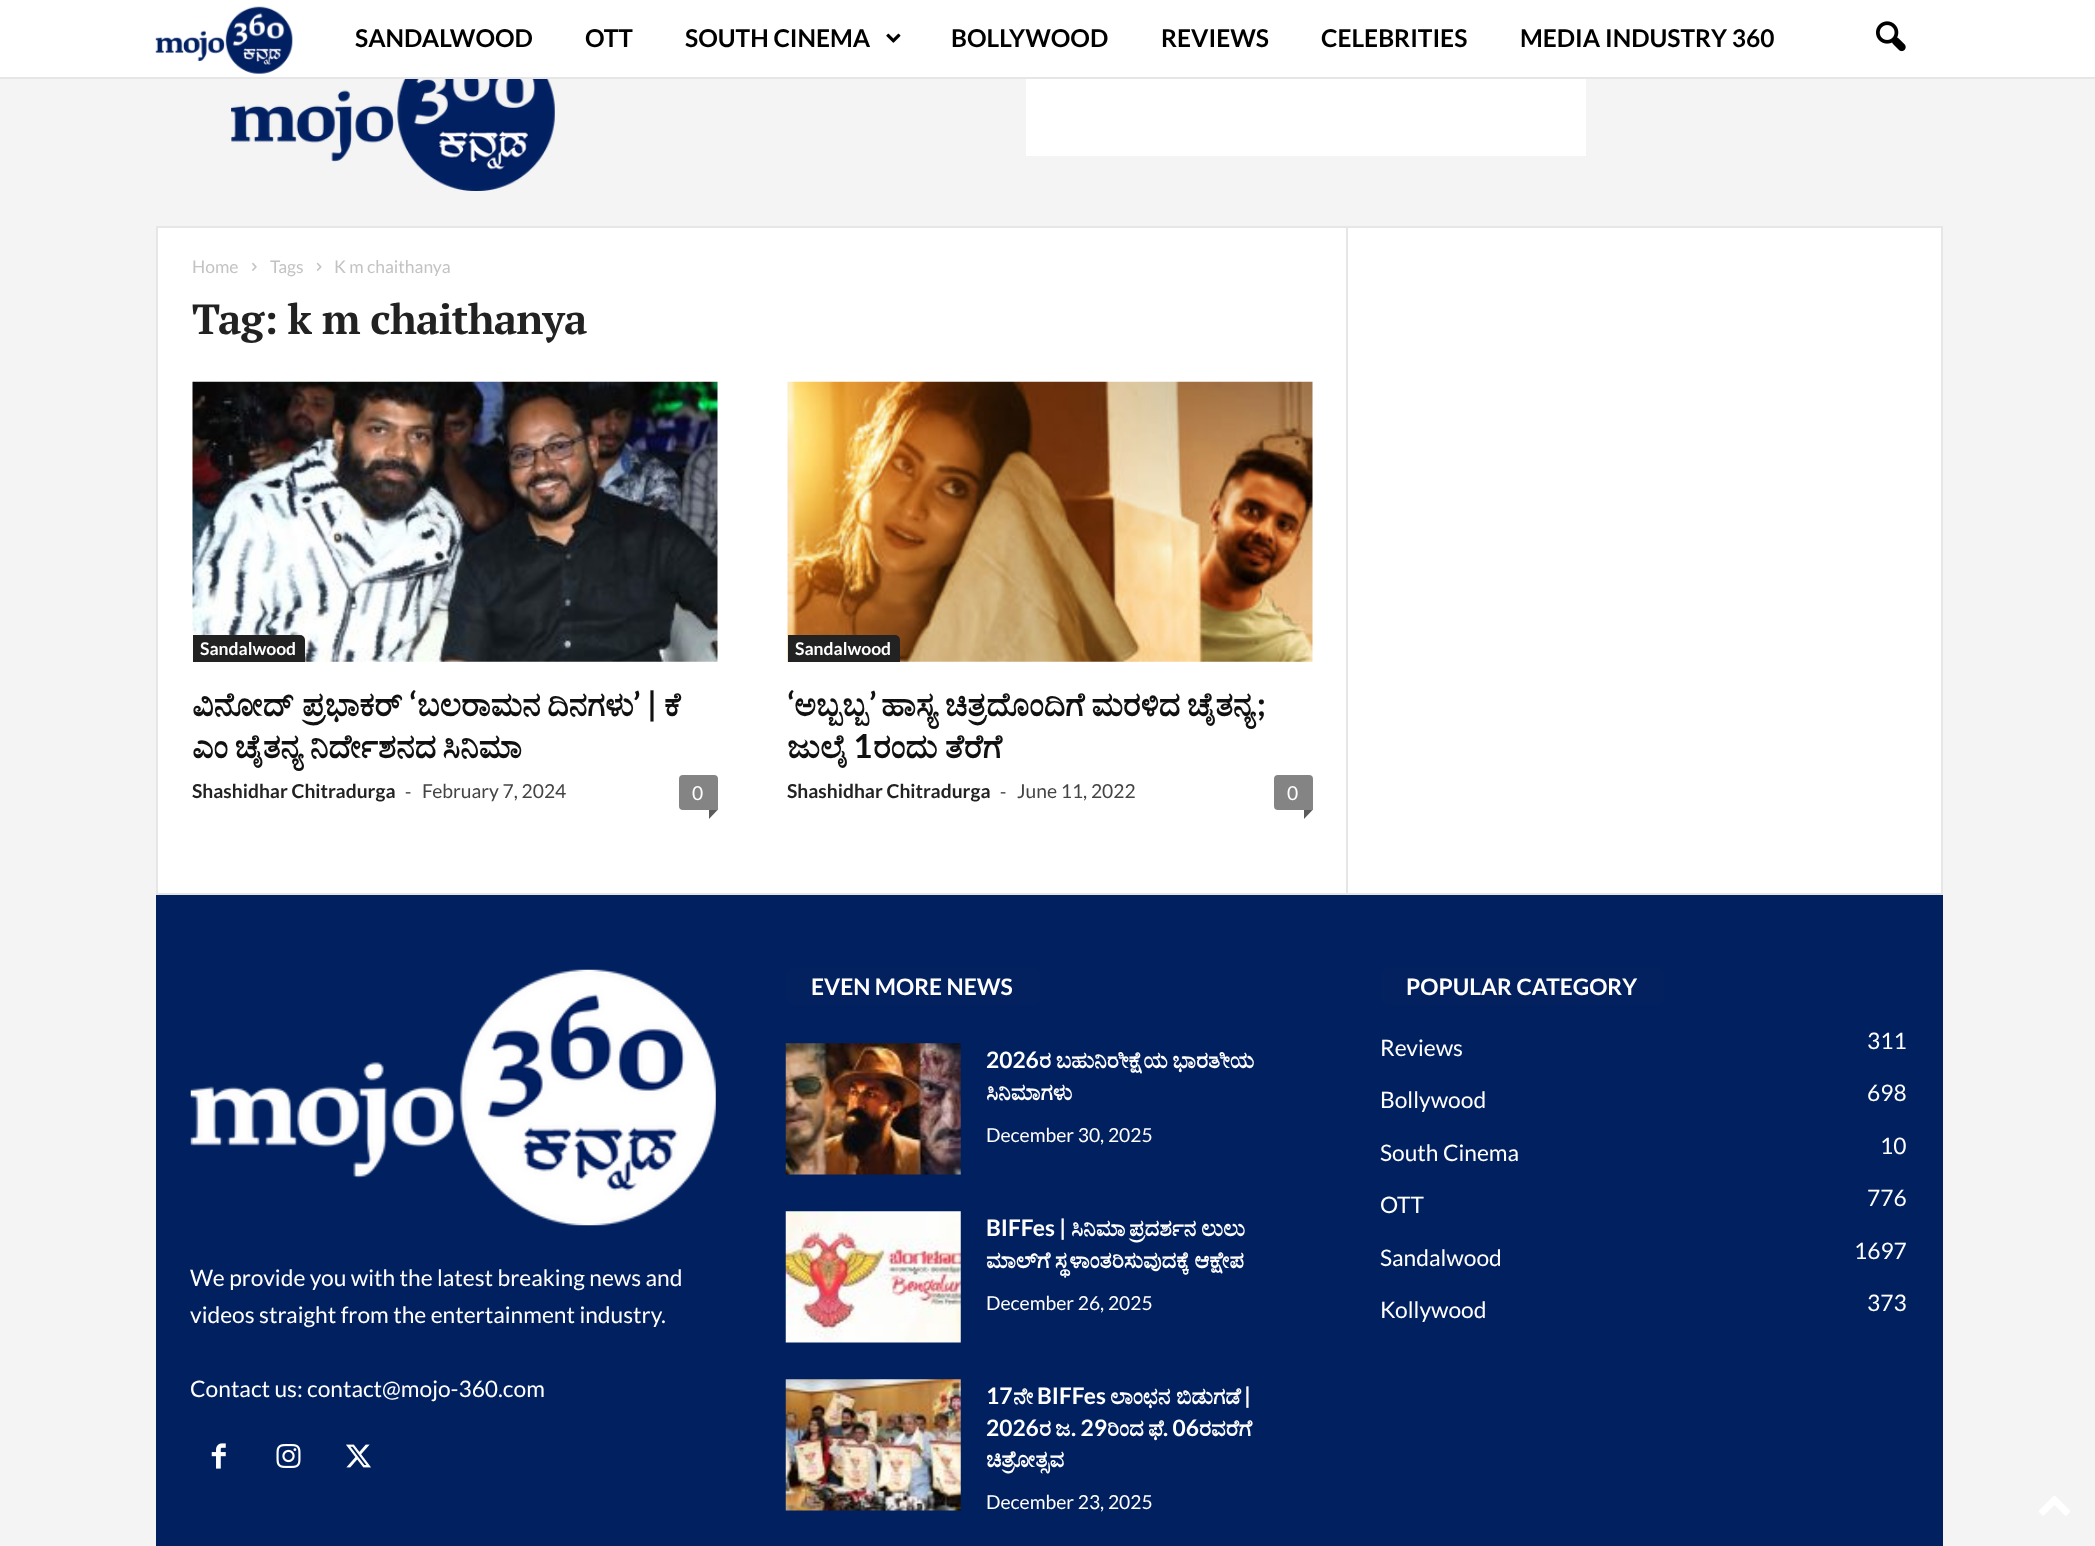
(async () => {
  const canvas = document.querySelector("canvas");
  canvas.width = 2095;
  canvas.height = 1546;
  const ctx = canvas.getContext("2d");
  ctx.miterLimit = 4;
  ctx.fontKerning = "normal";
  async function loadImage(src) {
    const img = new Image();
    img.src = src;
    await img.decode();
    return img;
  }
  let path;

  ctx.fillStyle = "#f4f4f4";
  ctx.fillRect(0, 0, 2095, 1546);
  ctx.fillStyle = "#ffffff";
  ctx.fillRect(0, 0, 2095, 77);
  ctx.fillStyle = "#e6e6e6";
  ctx.fillRect(0, 77, 2095, 2);
  ctx.drawImage(await loadImage("img/1.png"), 155, 6, 138, 68);
  ctx.drawImage(await loadImage("img/2.png"), 886, 33, 15, 10);
  ctx.drawImage(await loadImage("img/3.png"), 1876, 21, 30, 31);
  ctx.fillRect(156, 226, 1787, 2);
  ctx.drawImage(await loadImage("img/4.png"), 231, 79, 324, 112);
  for (const [x, y, w, h, color] of [
    [1026, 79, 560, 77, "#ffffff"],
    [158, 228, 1783, 665, "#ffffff"],
    [156, 893, 1787, 2, "#e6e6e6"],
    [156, 228, 2, 665, "#e6e6e6"],
  ]) {
    ctx.fillStyle = color;
    ctx.fillRect(x, y, w, h);
  }
  ctx.drawImage(await loadImage("img/5.png"), 252, 262, 5, 9);
  ctx.drawImage(await loadImage("img/6.png"), 316, 262, 6, 9);
  ctx.drawImage(await loadImage("img/7.png"), 192, 381, 526, 281);
  ctx.fillStyle = "#222222";
  ctx.beginPath();
  ctx.roundRect(193, 635, 112, 27, [0, 5, 0, 0]);
  ctx.fill();
  ctx.fillStyle = "#848484";
  ctx.beginPath();
  ctx.roundRect(679, 775, 39, 35, [4, 4, 0, 4]);
  ctx.fill();
  ctx.fillStyle = "#5b5b5b";
  path = new Path2D("M709 810H717.5L709 819Z");
  ctx.fill(path);
  ctx.drawImage(await loadImage("img/8.png"), 787, 381, 526, 281);
  ctx.fillStyle = "#222222";
  ctx.beginPath();
  ctx.roundRect(788, 635, 112, 27, [0, 5, 0, 0]);
  ctx.fill();
  ctx.fillStyle = "#848484";
  ctx.beginPath();
  ctx.roundRect(1274, 775, 39, 35, [4, 4, 0, 4]);
  ctx.fill();
  ctx.fillStyle = "#5b5b5b";
  path = new Path2D("M1304 810H1312.5L1304 819Z");
  ctx.fill(path);
  for (const [x, y, w, h, color] of [
    [1346, 228, 2, 665, "#e6e6e6"],
    [1941, 228, 2, 665, "#e6e6e6"],
    [156, 895, 1787, 651, "#002060"],
  ]) {
    ctx.fillStyle = color;
    ctx.fillRect(x, y, w, h);
  }
  ctx.fillStyle = "#03205f";
  ctx.beginPath();
  ctx.roundRect(786, 968, 254, 37, 5);
  ctx.fill();
  ctx.drawImage(await loadImage("img/9.png"), 785, 1043, 176, 132);
  ctx.drawImage(await loadImage("img/10.png"), 785, 1211, 176, 132);
  ctx.drawImage(await loadImage("img/11.png"), 785, 1379, 176, 132);
  ctx.beginPath();
  ctx.roundRect(1381, 968, 283, 37, 5);
  ctx.fill();
  ctx.drawImage(await loadImage("img/12.png"), 190, 969, 526, 257);
  ctx.drawImage(await loadImage("img/13.png"), 211, 1443, 15, 26);
  ctx.drawImage(await loadImage("img/14.png"), 276, 1444, 25, 24);
  ctx.drawImage(await loadImage("img/15.png"), 346, 1444, 25, 24);
  ctx.drawImage(await loadImage("img/16.png"), 2039, 1495, 31, 21);
  ctx.font = "bold 24.5px Lato";
  ctx.fillStyle = "#000000";
  for (const [text, x, y] of [
    ["SANDALWOOD", 355, 47],
    ["OTT", 585, 47],
    ["SOUTH CINEMA", 685, 47],
    ["BOLLYWOOD", 951, 47],
    ["REVIEWS", 1161, 47],
    ["CELEBRITIES", 1321, 47],
    ["MEDIA INDUSTRY 360", 1520, 47],
  ]) {
    ctx.fillText(text, x, y);
  }
  ctx.font = "17.5px Lato";
  ctx.fillStyle = "#c3c3c3";
  for (const [text, x, y] of [
    ["Home", 192, 273],
    ["Tags", 270, 273],
    ["K m chaithanya", 334, 273],
  ]) {
    ctx.fillText(text, x, y);
  }
  ctx.letterSpacing = "-0.8px";
  ctx.font = "bold 42px PT Serif";
  ctx.fillStyle = "#222222";
  ctx.fillText("Tag: k m chaithanya", 192, 334);
  ctx.letterSpacing = "0px";
  ctx.font = "bold 17.5px Lato";
  ctx.fillStyle = "#ffffff";
  ctx.fillText("Sandalwood", 200, 655);
  ctx.font = "bold 33.25px FreeSerif";
  ctx.fillStyle = "#111111";
  ctx.fillText("ವಿನೋದ್", 192, 716);
  ctx.fillText("ಪ್ರಭಾಕರ್", 302, 716);
  ctx.font = "bold 33.25px Lato";
  ctx.fillText("‘", 409, 716);
  ctx.font = "bold 33.25px FreeSerif";
  ctx.fillText("ಬಲರಾಮನ", 417, 716);
  ctx.fillText("ದಿನಗಳು", 547, 716);
  ctx.font = "bold 33.25px Lato";
  ctx.fillText("’ |", 633, 716);
  ctx.font = "bold 33.25px FreeSerif";
  ctx.fillText("ಕೆ", 664, 716);
  ctx.wordSpacing = "-2px";
  ctx.fillText("ಎಂ ಚೈತನ್ಯ ನಿರ್ದೇಶನದ ಸಿನಿಮಾ", 192, 758);
  ctx.wordSpacing = "0px";
  ctx.font = "bold 19.25px Lato";
  ctx.fillStyle = "#222222";
  ctx.fillText("Shashidhar Chitradurga", 192, 798);
  ctx.font = "19.25px Open Sans";
  ctx.fillStyle = "#444444";
  ctx.fillText("-", 405, 798);
  ctx.font = "19.25px Lato";
  ctx.fillText("February 7, 2024", 422, 798);
  ctx.fillStyle = "#ffffff";
  ctx.fillText("0", 692, 800);
  ctx.font = "bold 17.5px Lato";
  ctx.fillText("Sandalwood", 795, 655);
  ctx.font = "bold 33.25px Lato";
  ctx.fillStyle = "#111111";
  ctx.fillText("‘", 787, 716);
  ctx.font = "bold 33.25px FreeSerif";
  ctx.fillText("ಅಬ್ಬಬ್ಬ", 794, 716);
  ctx.font = "bold 33.25px Lato";
  ctx.fillText("’", 869, 716);
  ctx.wordSpacing = "-1.5px";
  ctx.font = "bold 33.25px FreeSerif";
  ctx.fillText("ಹಾಸ್ಯ ಚಿತ್ರದೊಂದಿಗೆ ಮರಳಿದ ಚೈತನ್ಯ", 881, 716);
  ctx.wordSpacing = "0px";
  ctx.font = "bold 33.25px Lato";
  ctx.fillText(";", 1257, 716);
  ctx.font = "bold 33.25px FreeSerif";
  ctx.fillText("ಜುಲೈ", 787, 758);
  ctx.font = "bold 33.25px Lato";
  ctx.fillText("1", 853, 758);
  ctx.wordSpacing = "-1px";
  ctx.font = "bold 33.25px FreeSerif";
  ctx.fillText("ರಂದು ತೆರೆಗೆ", 873, 758);
  ctx.wordSpacing = "0px";
  ctx.font = "bold 19.25px Lato";
  ctx.fillStyle = "#222222";
  ctx.fillText("Shashidhar Chitradurga", 787, 798);
  ctx.font = "19.25px Open Sans";
  ctx.fillStyle = "#444444";
  ctx.fillText("-", 1000, 798);
  ctx.font = "19.25px Lato";
  ctx.fillText("June 11, 2022", 1017, 798);
  ctx.fillStyle = "#ffffff";
  ctx.fillText("0", 1287, 800);
  ctx.font = "bold 22.75px Lato";
  ctx.fillText("EVEN MORE NEWS", 811, 995);
  ctx.fillText("2026", 986, 1068);
  ctx.wordSpacing = "-1px";
  ctx.font = "bold 22.75px FreeSerif";
  ctx.fillText("ರ ಬಹುನಿರೀಕ್ಷೆಯ ಭಾರತೀಯ", 1039, 1068);
  ctx.wordSpacing = "0px";
  ctx.fillText("ಸಿನಿಮಾಗಳು", 986, 1100);
  ctx.font = "19.25px Lato";
  ctx.fillText("December 30, 2025", 986, 1142);
  ctx.font = "bold 22.75px Lato";
  ctx.fillText("BIFFes |", 986, 1236);
  ctx.font = "bold 22.75px FreeSerif";
  for (const [text, x, y] of [
    ["ಸಿನಿಮಾ", 1071, 1236],
    ["ಪ್ರದರ್ಶನ", 1129, 1236],
    ["ಲುಲು", 1201, 1236],
  ]) {
    ctx.fillText(text, x, y);
  }
  ctx.wordSpacing = "-1px";
  ctx.fillText("ಮಾಲ್‌ಗೆ ಸ್ಥಳಾಂತರಿಸುವುದಕ್ಕೆ ಆಕ್ಷೇಪ", 986, 1268);
  ctx.wordSpacing = "0px";
  ctx.font = "19.25px Lato";
  ctx.fillText("December 26, 2025", 986, 1310);
  ctx.font = "bold 22.75px Lato";
  ctx.fillText("17", 986, 1404);
  ctx.font = "bold 22.75px FreeSerif";
  ctx.fillText("ನೇ", 1013, 1404);
  ctx.font = "bold 22.75px Lato";
  ctx.fillText("BIFFes", 1037, 1404);
  ctx.font = "bold 22.75px FreeSerif";
  ctx.fillText("ಲಾಂಛನ ಬಿಡುಗಡೆ", 1110, 1404);
  ctx.font = "bold 22.75px Lato";
  ctx.fillText("|", 1244, 1404);
  ctx.fillText("2026", 986, 1436);
  ctx.font = "bold 22.75px FreeSerif";
  ctx.fillText("ರ", 1039, 1436);
  ctx.fillText("ಜ", 1055, 1436);
  ctx.font = "bold 22.75px Lato";
  ctx.fillText(". 29", 1071, 1436);
  ctx.font = "bold 22.75px FreeSerif";
  ctx.fillText("ರಿಂದ", 1107, 1436);
  ctx.fillText("ಫೆ", 1148, 1436);
  ctx.font = "bold 22.75px Lato";
  ctx.fillText(". 06", 1163, 1436);
  ctx.font = "bold 22.75px FreeSerif";
  ctx.fillText("ರವರೆಗೆ", 1199, 1436);
  ctx.fillText("ಚಿತ್ರೋತ್ಸವ", 986, 1467);
  ctx.font = "19.25px Lato";
  ctx.fillText("December 23, 2025", 986, 1509);
  ctx.font = "bold 22.75px Lato";
  ctx.fillText("POPULAR CATEGORY", 1406, 995);
  ctx.font = "22.75px Lato";
  for (const [text, x, y] of [
    ["Reviews", 1380, 1056],
    ["311", 1867, 1049],
    ["Bollywood", 1380, 1108],
    ["698", 1867, 1101],
    ["South Cinema", 1380, 1161],
    ["10", 1880, 1154],
    ["OTT", 1380, 1213],
    ["776", 1867, 1206],
    ["Sandalwood", 1380, 1266],
    ["1697", 1854, 1259],
    ["Kollywood", 1380, 1318],
    ["373", 1867, 1311],
    ["We provide you with the latest breaking news and", 190, 1286],
    ["videos straight from the entertainment industry.", 190, 1323],
    ["Contact us: contact@mojo-360.com", 190, 1397],
  ]) {
    ctx.fillText(text, x, y);
  }
})();
